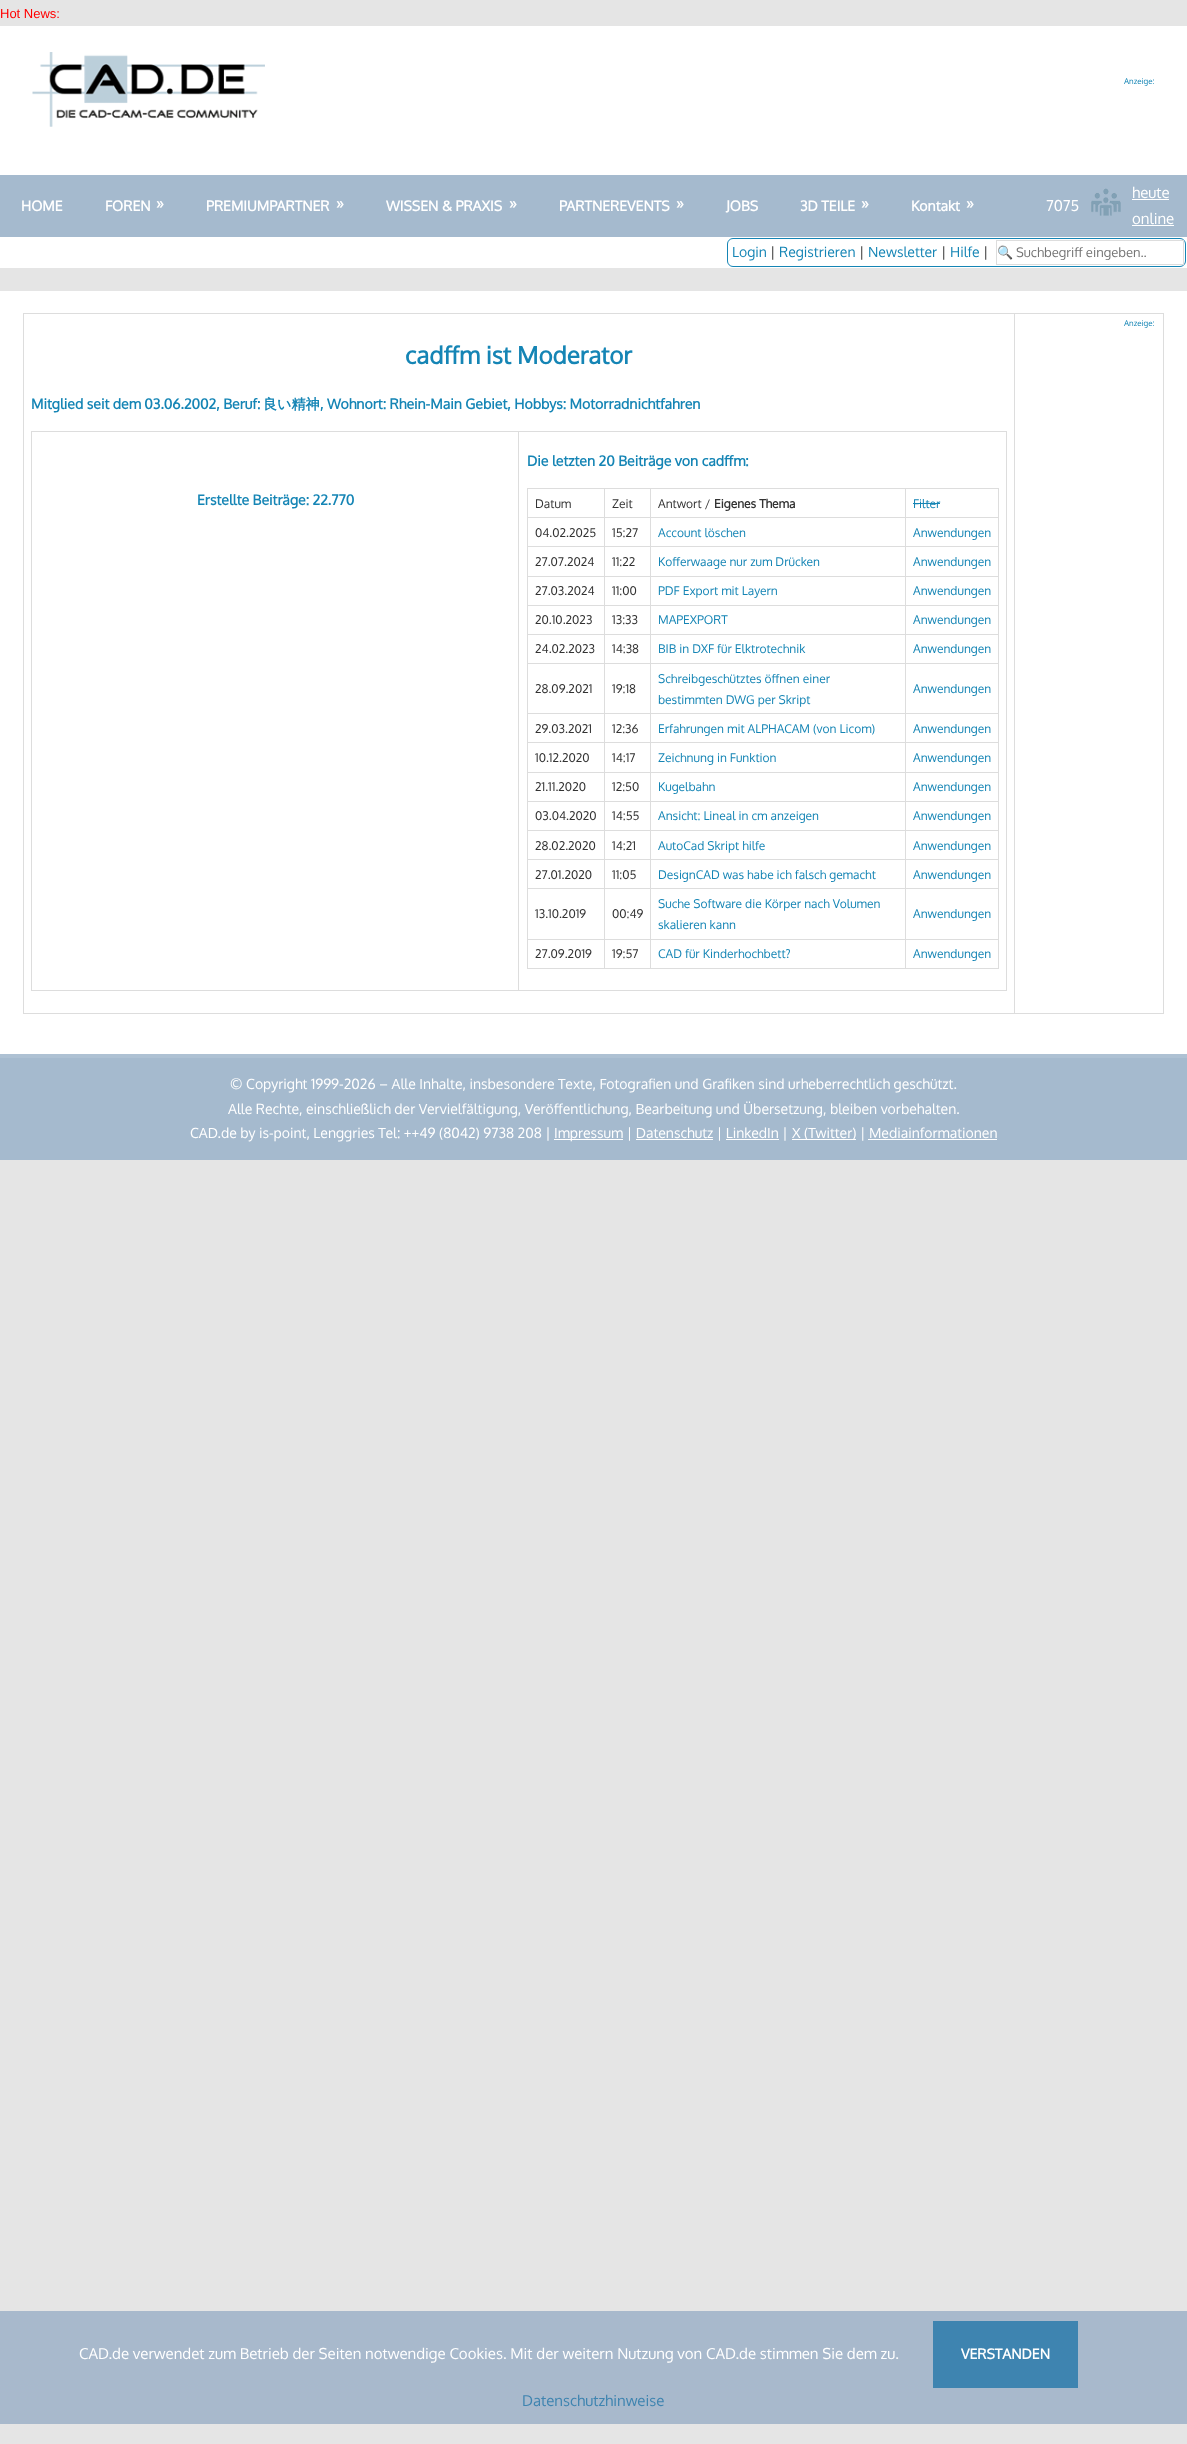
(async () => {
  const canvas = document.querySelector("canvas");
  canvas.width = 1187;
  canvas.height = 2444;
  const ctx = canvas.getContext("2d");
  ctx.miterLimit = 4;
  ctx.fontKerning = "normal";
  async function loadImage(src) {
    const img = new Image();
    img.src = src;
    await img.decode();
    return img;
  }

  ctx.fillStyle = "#e5e5e5";
  ctx.fillRect(0, 0, 1187, 2444);
  ctx.fillStyle = "#ffffff";
  ctx.fillRect(0, 26, 1187, 149);
  ctx.drawImage(await loadImage("img/1.png"), 32, 52, 233, 75);
  ctx.fillStyle = "#a5bace";
  ctx.fillRect(0, 175, 1187, 62);
  ctx.drawImage(await loadImage("img/2.png"), 1090, 188, 31, 28);
  for (const [x, y, w, h, color] of [
    [1132, 199, 37, 1, "#ffffff"],
    [1132, 225, 42, 1, "#ffffff"],
    [0, 237, 1187, 31, "#ffffff"],
  ]) {
    ctx.fillStyle = color;
    ctx.fillRect(x, y, w, h);
  }
  ctx.beginPath();
  ctx.roundRect(727.5, 238.5, 458, 28, 5.5);
  ctx.strokeStyle = "#1585b5";
  ctx.stroke();
  ctx.strokeStyle = "#dddddd";
  ctx.strokeRect(996.5, 240.5, 187, 24);
  for (const [x, y, w, h, color] of [
    [0, 291, 1187, 763, "#ffffff"],
    [1014, 313, 150, 1, "#dddddd"],
    [1163, 313, 1, 701, "#dddddd"],
    [1014, 1013, 150, 1, "#dddddd"],
    [1014, 313, 1, 701, "#dddddd"],
    [23, 313, 992, 1, "#dddddd"],
    [23, 1013, 992, 1, "#dddddd"],
    [23, 313, 1, 701, "#dddddd"],
    [518, 431, 489, 1, "#dddddd"],
    [1006, 431, 1, 560, "#dddddd"],
    [518, 990, 489, 1, "#dddddd"],
    [518, 431, 1, 560, "#dddddd"],
    [31, 431, 488, 1, "#dddddd"],
    [31, 990, 488, 1, "#dddddd"],
    [31, 431, 1, 560, "#dddddd"],
    [905, 488, 94, 1, "#dddddd"],
    [905, 517, 94, 1, "#dddddd"],
    [905, 546, 94, 1, "#dddddd"],
    [905, 576, 94, 1, "#dddddd"],
    [905, 605, 94, 1, "#dddddd"],
    [905, 634, 94, 1, "#dddddd"],
    [905, 663, 94, 1, "#dddddd"],
    [905, 713, 94, 1, "#dddddd"],
    [905, 742, 94, 1, "#dddddd"],
    [905, 772, 94, 1, "#dddddd"],
    [905, 801, 94, 1, "#dddddd"],
    [905, 830, 94, 1, "#dddddd"],
    [905, 859, 94, 1, "#dddddd"],
    [905, 888, 94, 1, "#dddddd"],
    [905, 939, 94, 1, "#dddddd"],
    [998, 939, 1, 30, "#dddddd"],
    [905, 968, 94, 1, "#dddddd"],
    [905, 939, 1, 30, "#dddddd"],
    [650, 939, 256, 1, "#dddddd"],
    [905, 888, 1, 52, "#dddddd"],
    [650, 888, 256, 1, "#dddddd"],
    [905, 859, 1, 30, "#dddddd"],
    [650, 859, 256, 1, "#dddddd"],
    [905, 830, 1, 30, "#dddddd"],
    [650, 830, 256, 1, "#dddddd"],
    [905, 801, 1, 30, "#dddddd"],
    [650, 801, 256, 1, "#dddddd"],
    [905, 772, 1, 30, "#dddddd"],
    [650, 772, 256, 1, "#dddddd"],
    [905, 742, 1, 31, "#dddddd"],
    [650, 742, 256, 1, "#dddddd"],
    [905, 713, 1, 30, "#dddddd"],
    [650, 713, 256, 1, "#dddddd"],
    [905, 663, 1, 51, "#dddddd"],
    [650, 663, 256, 1, "#dddddd"],
    [905, 634, 1, 30, "#dddddd"],
    [650, 634, 256, 1, "#dddddd"],
    [905, 605, 1, 30, "#dddddd"],
    [650, 605, 256, 1, "#dddddd"],
    [905, 576, 1, 30, "#dddddd"],
    [650, 576, 256, 1, "#dddddd"],
    [905, 546, 1, 31, "#dddddd"],
    [650, 546, 256, 1, "#dddddd"],
    [905, 517, 1, 30, "#dddddd"],
    [650, 517, 256, 1, "#dddddd"],
    [905, 488, 1, 30, "#dddddd"],
    [650, 488, 256, 1, "#dddddd"],
    [650, 968, 256, 1, "#dddddd"],
    [650, 939, 1, 30, "#dddddd"],
    [604, 939, 47, 1, "#dddddd"],
    [650, 888, 1, 52, "#dddddd"],
    [604, 888, 47, 1, "#dddddd"],
    [650, 859, 1, 30, "#dddddd"],
    [604, 859, 47, 1, "#dddddd"],
    [650, 830, 1, 30, "#dddddd"],
    [604, 830, 47, 1, "#dddddd"],
    [650, 801, 1, 30, "#dddddd"],
    [604, 801, 47, 1, "#dddddd"],
    [650, 772, 1, 30, "#dddddd"],
    [604, 772, 47, 1, "#dddddd"],
    [650, 742, 1, 31, "#dddddd"],
    [604, 742, 47, 1, "#dddddd"],
    [650, 713, 1, 30, "#dddddd"],
    [604, 713, 47, 1, "#dddddd"],
    [650, 663, 1, 51, "#dddddd"],
    [604, 663, 47, 1, "#dddddd"],
    [650, 634, 1, 30, "#dddddd"],
    [604, 634, 47, 1, "#dddddd"],
    [650, 605, 1, 30, "#dddddd"],
    [604, 605, 47, 1, "#dddddd"],
    [650, 576, 1, 30, "#dddddd"],
    [604, 576, 47, 1, "#dddddd"],
    [650, 546, 1, 31, "#dddddd"],
    [604, 546, 47, 1, "#dddddd"],
    [650, 517, 1, 30, "#dddddd"],
    [604, 517, 47, 1, "#dddddd"],
    [650, 488, 1, 30, "#dddddd"],
    [604, 488, 47, 1, "#dddddd"],
    [604, 968, 47, 1, "#dddddd"],
    [604, 939, 1, 30, "#dddddd"],
    [527, 939, 78, 1, "#dddddd"],
    [604, 888, 1, 52, "#dddddd"],
    [527, 888, 78, 1, "#dddddd"],
    [604, 859, 1, 30, "#dddddd"],
    [527, 859, 78, 1, "#dddddd"],
    [604, 830, 1, 30, "#dddddd"],
    [527, 830, 78, 1, "#dddddd"],
    [604, 801, 1, 30, "#dddddd"],
    [527, 801, 78, 1, "#dddddd"],
    [604, 772, 1, 30, "#dddddd"],
    [527, 772, 78, 1, "#dddddd"],
    [604, 742, 1, 31, "#dddddd"],
    [527, 742, 78, 1, "#dddddd"],
    [604, 713, 1, 30, "#dddddd"],
    [527, 713, 78, 1, "#dddddd"],
    [604, 663, 1, 51, "#dddddd"],
    [527, 663, 78, 1, "#dddddd"],
    [604, 634, 1, 30, "#dddddd"],
    [527, 634, 78, 1, "#dddddd"],
    [604, 605, 1, 30, "#dddddd"],
    [527, 605, 78, 1, "#dddddd"],
    [604, 576, 1, 30, "#dddddd"],
    [527, 576, 78, 1, "#dddddd"],
    [604, 546, 1, 31, "#dddddd"],
    [527, 546, 78, 1, "#dddddd"],
    [604, 517, 1, 30, "#dddddd"],
    [527, 517, 78, 1, "#dddddd"],
    [604, 488, 1, 30, "#dddddd"],
    [527, 488, 78, 1, "#dddddd"],
    [527, 968, 78, 1, "#dddddd"],
    [527, 939, 1, 30, "#dddddd"],
    [527, 888, 1, 52, "#dddddd"],
    [527, 859, 1, 30, "#dddddd"],
    [527, 830, 1, 30, "#dddddd"],
    [527, 801, 1, 30, "#dddddd"],
    [527, 772, 1, 30, "#dddddd"],
    [527, 742, 1, 31, "#dddddd"],
    [527, 713, 1, 30, "#dddddd"],
    [527, 663, 1, 51, "#dddddd"],
    [527, 634, 1, 30, "#dddddd"],
    [527, 605, 1, 30, "#dddddd"],
    [527, 576, 1, 30, "#dddddd"],
    [527, 546, 1, 31, "#dddddd"],
    [527, 517, 1, 30, "#dddddd"],
    [527, 488, 1, 30, "#dddddd"],
    [998, 888, 1, 52, "#dddddd"],
    [998, 859, 1, 30, "#dddddd"],
    [998, 830, 1, 30, "#dddddd"],
    [998, 801, 1, 30, "#dddddd"],
    [998, 772, 1, 30, "#dddddd"],
    [998, 742, 1, 31, "#dddddd"],
    [998, 713, 1, 30, "#dddddd"],
    [998, 663, 1, 51, "#dddddd"],
    [998, 634, 1, 30, "#dddddd"],
    [998, 605, 1, 30, "#dddddd"],
    [998, 576, 1, 30, "#dddddd"],
    [998, 546, 1, 31, "#dddddd"],
    [998, 517, 1, 30, "#dddddd"],
    [998, 488, 1, 30, "#dddddd"],
    [913, 503, 27, 1, "#1585b5"],
    [0, 1058, 1187, 102, "#a5bace"],
    [0, 1054, 1187, 4, "#aec1d3"],
    [554, 1139, 69, 1, "#ffffff"],
    [636, 1139, 77, 1, "#ffffff"],
    [792, 1139, 64, 1, "#ffffff"],
    [726, 1139, 53, 1, "#ffffff"],
    [868, 1139, 129, 1, "#ffffff"],
    [0, 2311, 1187, 113, "#a8b9cc"],
    [933, 2321, 145, 67, "#3e84b0"],
  ]) {
    ctx.fillStyle = color;
    ctx.fillRect(x, y, w, h);
  }
  ctx.font = "13px Liberation Sans";
  ctx.fillStyle = "#ff0000";
  ctx.fillText("Hot News:", 0, 18);
  ctx.font = "8px Oxygen";
  ctx.fillStyle = "#1585b5";
  ctx.fillText("Anzeige:", 1124, 84);
  ctx.font = "bold 14px Oxygen";
  ctx.fillStyle = "#ffffff";
  ctx.fillText("HOME", 21, 211);
  ctx.fillText("FOREN", 105, 211);
  ctx.font = "bold 16px Oxygen";
  ctx.fillText("»", 156, 209);
  ctx.font = "bold 14px Oxygen";
  ctx.fillText("PREMIUMPARTNER", 206, 211);
  ctx.font = "bold 16px Oxygen";
  ctx.fillText("»", 336, 209);
  ctx.font = "bold 14px Oxygen";
  ctx.fillText("WISSEN & PRAXIS", 386, 211);
  ctx.font = "bold 16px Oxygen";
  ctx.fillText("»", 509, 209);
  ctx.font = "bold 14px Oxygen";
  ctx.fillText("PARTNEREVENTS", 559, 211);
  ctx.font = "bold 16px Oxygen";
  ctx.fillText("»", 676, 209);
  ctx.font = "bold 14px Oxygen";
  ctx.fillText("JOBS", 726, 211);
  ctx.fillText("3D TEILE", 800, 211);
  ctx.font = "bold 16px Oxygen";
  ctx.fillText("»", 861, 209);
  ctx.font = "bold 14px Oxygen";
  ctx.fillText("Kontakt", 911, 211);
  ctx.font = "bold 16px Oxygen";
  ctx.fillText("»", 966, 209);
  ctx.font = "15px Oxygen";
  for (const [text, x, y] of [
    ["7075", 1046, 211],
    ["heute", 1132, 198],
    ["online", 1132, 224],
  ]) {
    ctx.fillText(text, x, y);
  }
  ctx.font = "14px Oxygen";
  ctx.fillStyle = "#1585b5";
  ctx.fillText("Login", 732, 257);
  ctx.fillStyle = "#333333";
  ctx.fillText("|", 770, 257);
  ctx.fillStyle = "#1585b5";
  ctx.fillText("Registrieren", 779, 257);
  ctx.fillStyle = "#333333";
  ctx.fillText("|", 859, 257);
  ctx.fillStyle = "#1585b5";
  ctx.fillText("Newsletter", 868, 257);
  ctx.fillStyle = "#333333";
  ctx.fillText("|", 941, 257);
  ctx.fillStyle = "#1585b5";
  ctx.fillText("Hilfe", 950, 257);
  ctx.fillStyle = "#333333";
  ctx.fillText("|", 983, 257);
  ctx.save();
  ctx.beginPath();
  ctx.rect(997, 244, 186, 16);
  ctx.clip();
  ctx.font = "13px Noto Color Emoji";
  ctx.fillStyle = "#757575";
  ctx.fillText("🔍", 997, 257);
  ctx.font = "13px Oxygen";
  ctx.fillText("Suchbegriff eingeben..", 1016, 257);
  ctx.restore();
  ctx.font = "8px Oxygen";
  ctx.fillStyle = "#1585b5";
  ctx.fillText("Anzeige:", 1124, 326);
  ctx.font = "bold 24px Oxygen";
  ctx.fillText("cadffm ist Moderator", 405, 364);
  ctx.font = "bold 14.05px Oxygen";
  ctx.fillText("Mitglied seit dem 03.06.2002, Beruf:", 31, 409);
  ctx.font = "bold 14.05px WenQuanYi Zen Hei";
  ctx.fillText("良い精神", 263, 409);
  ctx.font = "bold 14.05px Oxygen";
  for (const [text, x, y] of [
    [", Wohnort: Rhein-Main Gebiet, Hobbys: Motorradnichtfahren", 320, 409],
    ["Erstellte Beiträge: 22.770", 197, 505],
    ["Die letzten 20 Beiträge von cadffm:", 527, 466],
  ]) {
    ctx.fillText(text, x, y);
  }
  ctx.font = "12px Oxygen";
  ctx.fillStyle = "#333333";
  for (const [text, x, y] of [
    ["Datum", 535, 508],
    ["Zeit", 612, 508],
    ["Antwort /", 658, 508],
  ]) {
    ctx.fillText(text, x, y);
  }
  ctx.font = "bold 12px Oxygen";
  ctx.fillText("Eigenes Thema", 714, 508);
  ctx.font = "12px Oxygen";
  ctx.fillStyle = "#1585b5";
  ctx.fillText("Filter", 913, 508);
  ctx.fillStyle = "#333333";
  ctx.fillText("04.02.2025", 535, 537);
  ctx.fillText("15:27", 612, 537);
  ctx.fillStyle = "#1585b5";
  ctx.fillText("Account löschen", 658, 537);
  ctx.fillText("Anwendungen", 913, 537);
  ctx.fillStyle = "#333333";
  ctx.fillText("27.07.2024", 535, 566);
  ctx.fillText("11:22", 612, 566);
  ctx.fillStyle = "#1585b5";
  ctx.fillText("Kofferwaage nur zum Drücken", 658, 566);
  ctx.fillText("Anwendungen", 913, 566);
  ctx.fillStyle = "#333333";
  ctx.fillText("27.03.2024", 535, 595);
  ctx.fillText("11:00", 612, 595);
  ctx.fillStyle = "#1585b5";
  ctx.fillText("PDF Export mit Layern", 658, 595);
  ctx.fillText("Anwendungen", 913, 595);
  ctx.fillStyle = "#333333";
  ctx.fillText("20.10.2023", 535, 624);
  ctx.fillText("13:33", 612, 624);
  ctx.fillStyle = "#1585b5";
  ctx.fillText("MAPEXPORT", 658, 624);
  ctx.fillText("Anwendungen", 913, 624);
  ctx.fillStyle = "#333333";
  ctx.fillText("24.02.2023", 535, 653);
  ctx.fillText("14:38", 612, 653);
  ctx.fillStyle = "#1585b5";
  ctx.fillText("BIB in DXF für Elktrotechnik", 658, 653);
  ctx.fillText("Anwendungen", 913, 653);
  ctx.fillStyle = "#333333";
  ctx.fillText("28.09.2021", 535, 693);
  ctx.fillText("19:18", 612, 693);
  ctx.fillStyle = "#1585b5";
  for (const [text, x, y] of [
    ["Schreibgeschütztes öffnen einer", 658, 683],
    ["bestimmten DWG per Skript", 658, 704],
    ["Anwendungen", 913, 693],
  ]) {
    ctx.fillText(text, x, y);
  }
  ctx.fillStyle = "#333333";
  ctx.fillText("29.03.2021", 535, 733);
  ctx.fillText("12:36", 612, 733);
  ctx.fillStyle = "#1585b5";
  ctx.fillText("Erfahrungen mit ALPHACAM (von Licom)", 658, 733);
  ctx.fillText("Anwendungen", 913, 733);
  ctx.fillStyle = "#333333";
  ctx.fillText("10.12.2020", 535, 762);
  ctx.fillText("14:17", 612, 762);
  ctx.fillStyle = "#1585b5";
  ctx.fillText("Zeichnung in Funktion", 658, 762);
  ctx.fillText("Anwendungen", 913, 762);
  ctx.fillStyle = "#333333";
  ctx.fillText("21.11.2020", 535, 791);
  ctx.fillText("12:50", 612, 791);
  ctx.fillStyle = "#1585b5";
  ctx.fillText("Kugelbahn", 658, 791);
  ctx.fillText("Anwendungen", 913, 791);
  ctx.fillStyle = "#333333";
  ctx.fillText("03.04.2020", 535, 820);
  ctx.fillText("14:55", 612, 820);
  ctx.fillStyle = "#1585b5";
  ctx.fillText("Ansicht: Lineal in cm anzeigen", 658, 820);
  ctx.fillText("Anwendungen", 913, 820);
  ctx.fillStyle = "#333333";
  ctx.fillText("28.02.2020", 535, 850);
  ctx.fillText("14:21", 612, 850);
  ctx.fillStyle = "#1585b5";
  ctx.fillText("AutoCad Skript hilfe", 658, 850);
  ctx.fillText("Anwendungen", 913, 850);
  ctx.fillStyle = "#333333";
  ctx.fillText("27.01.2020", 535, 879);
  ctx.fillText("11:05", 612, 879);
  ctx.fillStyle = "#1585b5";
  ctx.fillText("DesignCAD was habe ich falsch gemacht", 658, 879);
  ctx.fillText("Anwendungen", 913, 879);
  ctx.fillStyle = "#333333";
  ctx.fillText("13.10.2019", 535, 918);
  ctx.fillText("00:49", 612, 918);
  ctx.fillStyle = "#1585b5";
  for (const [text, x, y] of [
    ["Suche Software die Körper nach Volumen", 658, 908],
    ["skalieren kann", 658, 929],
    ["Anwendungen", 913, 918],
  ]) {
    ctx.fillText(text, x, y);
  }
  ctx.fillStyle = "#333333";
  ctx.fillText("27.09.2019", 535, 958);
  ctx.fillText("19:57", 612, 958);
  ctx.fillStyle = "#1585b5";
  ctx.fillText("CAD für Kinderhochbett?", 658, 958);
  ctx.fillText("Anwendungen", 913, 958);
  ctx.font = "14px Oxygen";
  ctx.fillStyle = "#ffffff";
  for (const [text, x, y] of [
    ["© Copyright 1999-2026 – Alle Inhalte, insbesondere Texte, Fotografien und Grafiken sind urheberrechtlich geschützt.", 230, 1089],
    ["Alle Rechte, einschließlich der Vervielfältigung, Veröffentlichung, Bearbeitung und Übersetzung, bleiben vorbehalten.", 228, 1114],
    ["CAD.de by is-point, Lenggries Tel: ++49 (8042) 9738 208 |", 190, 1138],
    ["Impressum | Datenschutz | LinkedIn |", 554, 1138],
    ["X (Twitter) | Mediainformationen", 792, 1138],
  ]) {
    ctx.fillText(text, x, y);
  }
  ctx.font = "15px Oxygen";
  ctx.fillText("CAD.de verwendet zum Betrieb der Seiten notwendige Cookies. Mit der weitern Nutzung von CAD.de stimmen Sie dem zu.", 79, 2359);
  ctx.font = "bold 14px Oxygen";
  ctx.fillText("VERSTANDEN", 961, 2359);
  ctx.font = "15px Oxygen";
  ctx.fillStyle = "#3e84b0";
  ctx.fillText("Datenschutzhinweise", 522, 2406);
})();
